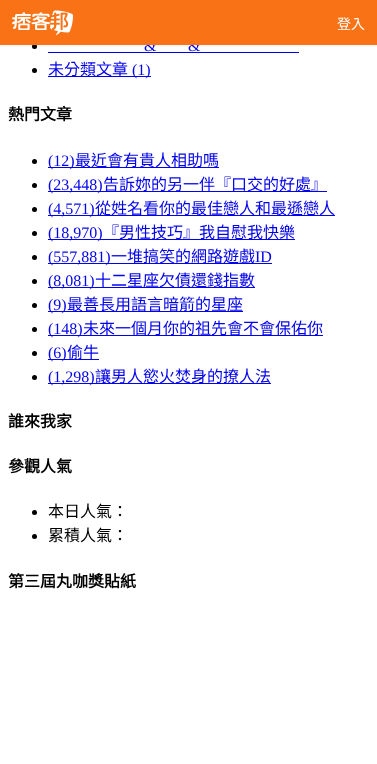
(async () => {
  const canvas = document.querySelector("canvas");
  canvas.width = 377;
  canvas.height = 764;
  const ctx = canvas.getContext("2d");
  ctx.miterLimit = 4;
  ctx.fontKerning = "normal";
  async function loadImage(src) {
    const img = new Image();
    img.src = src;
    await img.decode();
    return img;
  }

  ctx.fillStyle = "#ffffff";
  ctx.fillRect(0, 0, 377, 764);
  ctx.fillStyle = "#000000";
  ctx.beginPath();
  ctx.arc(34.5, 46.5, 2.5, 0, Math.PI * 2);
  ctx.fill();
  ctx.fillStyle = "rgba(0, 0, 0, 0.05)";
  ctx.filter = "blur(1px)";
  ctx.beginPath();
  ctx.rect(0, 1, 377, 45);
  ctx.fill();
  ctx.filter = "none";
  ctx.fillStyle = "#0000ee";
  ctx.fillRect(48, 52, 251, 1);
  ctx.fillStyle = "#000000";
  ctx.beginPath();
  ctx.arc(34.5, 70.5, 2.5, 0, Math.PI * 2);
  ctx.fill();
  ctx.fillStyle = "#0000ee";
  ctx.fillRect(48, 76, 103, 1);
  ctx.fillStyle = "#000000";
  ctx.beginPath();
  ctx.arc(34.5, 161.5, 2.5, 0, Math.PI * 2);
  ctx.fill();
  ctx.fillStyle = "#0000ee";
  ctx.fillRect(48, 167, 171, 1);
  ctx.fillStyle = "#000000";
  ctx.beginPath();
  ctx.arc(34.5, 185.5, 2.5, 0, Math.PI * 2);
  ctx.fill();
  ctx.fillStyle = "#0000ee";
  ctx.fillRect(48, 191, 279, 1);
  ctx.fillStyle = "#000000";
  ctx.beginPath();
  ctx.arc(34.5, 209.5, 2.5, 0, Math.PI * 2);
  ctx.fill();
  ctx.fillStyle = "#0000ee";
  ctx.fillRect(48, 215, 287, 1);
  ctx.fillStyle = "#000000";
  ctx.beginPath();
  ctx.arc(34.5, 233.5, 2.5, 0, Math.PI * 2);
  ctx.fill();
  ctx.fillStyle = "#0000ee";
  ctx.fillRect(48, 239, 247, 1);
  ctx.fillStyle = "#000000";
  ctx.beginPath();
  ctx.arc(34.5, 257.5, 2.5, 0, Math.PI * 2);
  ctx.fill();
  ctx.fillStyle = "#0000ee";
  ctx.fillRect(48, 263, 224, 1);
  ctx.fillStyle = "#000000";
  ctx.beginPath();
  ctx.arc(34.5, 281.5, 2.5, 0, Math.PI * 2);
  ctx.fill();
  ctx.fillStyle = "#0000ee";
  ctx.fillRect(48, 287, 207, 1);
  ctx.fillStyle = "#000000";
  ctx.beginPath();
  ctx.arc(34.5, 305.5, 2.5, 0, Math.PI * 2);
  ctx.fill();
  ctx.fillStyle = "#0000ee";
  ctx.fillRect(48, 311, 195, 1);
  ctx.fillStyle = "#000000";
  ctx.beginPath();
  ctx.arc(34.5, 329.5, 2.5, 0, Math.PI * 2);
  ctx.fill();
  ctx.fillStyle = "#0000ee";
  ctx.fillRect(48, 335, 275, 1);
  ctx.fillStyle = "#000000";
  ctx.beginPath();
  ctx.arc(34.5, 353.5, 2.5, 0, Math.PI * 2);
  ctx.fill();
  ctx.fillStyle = "#0000ee";
  ctx.fillRect(48, 359, 51, 1);
  ctx.fillStyle = "#000000";
  ctx.beginPath();
  ctx.arc(34.5, 377.5, 2.5, 0, Math.PI * 2);
  ctx.fill();
  ctx.fillStyle = "#0000ee";
  ctx.fillRect(48, 383, 223, 1);
  ctx.fillStyle = "#000000";
  ctx.beginPath();
  ctx.arc(34.5, 512.5, 2.5, 0, Math.PI * 2);
  ctx.fill();
  ctx.beginPath();
  ctx.arc(34.5, 536.5, 2.5, 0, Math.PI * 2);
  ctx.fill();
  ctx.font = "16px Liberation Serif";
  ctx.fillStyle = "#0000ee";
  ctx.fillText("&", 144, 51);
  ctx.fillText("&", 188, 51);
  ctx.fillStyle = "#f97316";
  ctx.fillRect(0, 0, 377, 45);
  ctx.font = "14px Noto Sans CJK TC";
  ctx.fillStyle = "#ffffff";
  ctx.fillText("登入", 337, 29);
  ctx.drawImage(await loadImage("img/1.png"), 12, 10, 61, 25);
  ctx.font = "16px Noto Sans CJK TC";
  ctx.fillStyle = "#0000ee";
  ctx.fillText("未分類文章", 48, 75);
  ctx.font = "16px Liberation Serif";
  ctx.fillText("(1)", 132, 75);
  ctx.font = "bold 16px Noto Sans CJK TC";
  ctx.fillStyle = "#000000";
  ctx.fillText("熱門文章", 8, 120);
  ctx.font = "16px Liberation Serif";
  ctx.fillStyle = "#0000ee";
  ctx.fillText("(12)", 48, 166);
  ctx.font = "16px Noto Sans CJK TC";
  ctx.fillText("最近會有貴人相助嗎", 75, 166);
  ctx.font = "16px Liberation Serif";
  ctx.fillText("(23,448)", 48, 190);
  ctx.font = "16px Noto Sans CJK TC";
  ctx.fillText("告訴妳的另一伴『口交的好處』", 103, 190);
  ctx.font = "16px Liberation Serif";
  ctx.fillText("(4,571)", 48, 214);
  ctx.font = "16px Noto Sans CJK TC";
  ctx.fillText("從姓名看你的最佳戀人和最遜戀人", 95, 214);
  ctx.font = "16px Liberation Serif";
  ctx.fillText("(18,970)", 48, 238);
  ctx.font = "16px Noto Sans CJK TC";
  ctx.fillText("『男性技巧』我自慰我快樂", 103, 238);
  ctx.font = "16px Liberation Serif";
  ctx.fillText("(557,881)", 48, 262);
  ctx.font = "16px Noto Sans CJK TC";
  ctx.fillText("一堆搞笑的網路遊戲", 111, 262);
  ctx.font = "16px Liberation Serif";
  ctx.fillText("ID", 255, 262);
  ctx.fillText("(8,081)", 48, 286);
  ctx.font = "16px Noto Sans CJK TC";
  ctx.fillText("十二星座欠債還錢指數", 95, 286);
  ctx.font = "16px Liberation Serif";
  ctx.fillText("(9)", 48, 310);
  ctx.font = "16px Noto Sans CJK TC";
  ctx.fillText("最善長用語言暗箭的星座", 67, 310);
  ctx.font = "16px Liberation Serif";
  ctx.fillText("(148)", 48, 334);
  ctx.font = "16px Noto Sans CJK TC";
  ctx.fillText("未來一個月你的祖先會不會保佑你", 83, 334);
  ctx.font = "16px Liberation Serif";
  ctx.fillText("(6)", 48, 358);
  ctx.font = "16px Noto Sans CJK TC";
  ctx.fillText("偷牛", 67, 358);
  ctx.font = "16px Liberation Serif";
  ctx.fillText("(1,298)", 48, 382);
  ctx.font = "16px Noto Sans CJK TC";
  ctx.fillText("讓男人慾火焚身的撩人法", 95, 382);
  ctx.font = "bold 16px Noto Sans CJK TC";
  ctx.fillStyle = "#000000";
  ctx.fillText("誰來我家", 8, 427);
  ctx.fillText("參觀人氣", 8, 472);
  ctx.font = "16px Noto Sans CJK TC";
  ctx.fillText("本日人氣：", 48, 517);
  ctx.fillText("累積人氣：", 48, 541);
  ctx.font = "bold 16px Noto Sans CJK TC";
  ctx.fillText("第三屆丸咖獎貼紙", 8, 587);
})();
